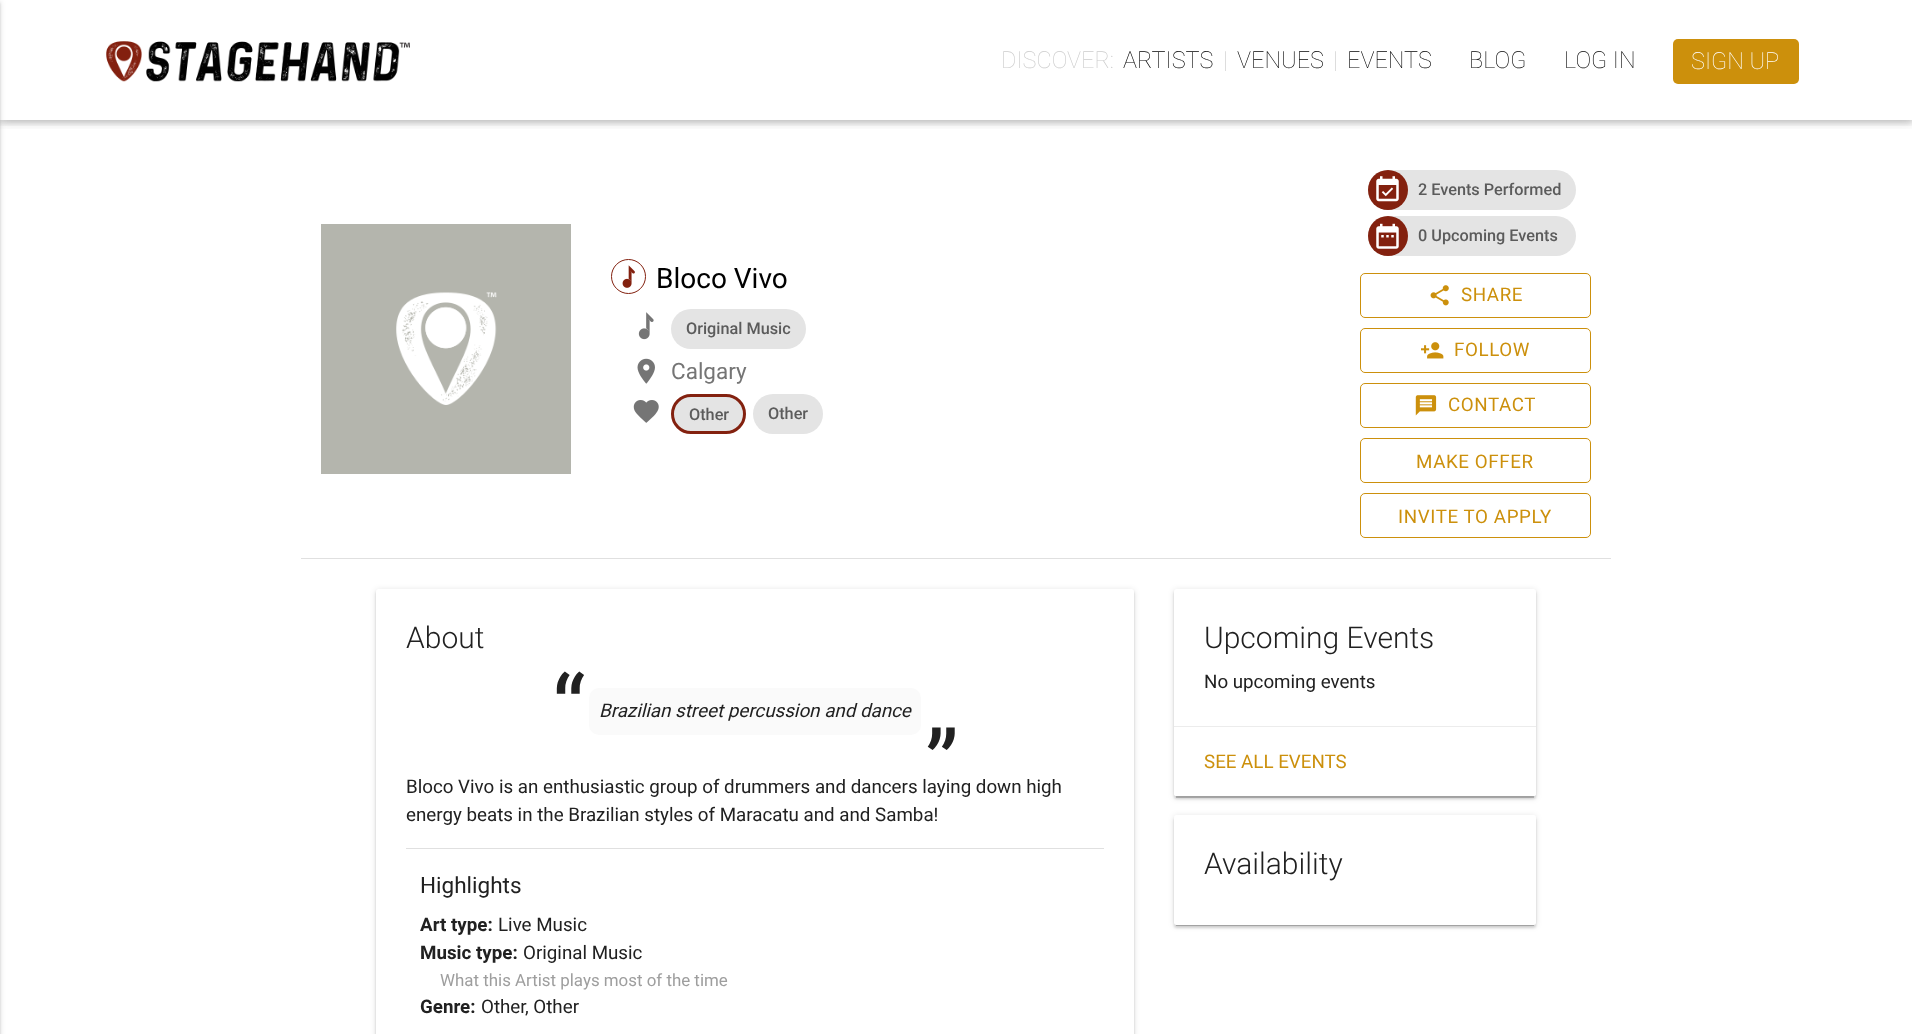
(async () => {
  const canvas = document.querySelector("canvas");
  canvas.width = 1912;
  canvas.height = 1034;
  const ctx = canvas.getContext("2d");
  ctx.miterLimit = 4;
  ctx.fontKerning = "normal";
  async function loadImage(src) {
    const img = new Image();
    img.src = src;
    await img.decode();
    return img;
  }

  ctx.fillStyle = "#ffffff";
  ctx.fillRect(0, 0, 1912, 1034);
  ctx.fillStyle = "rgba(0, 0, 0, 0.12)";
  ctx.filter = "blur(3px)";
  ctx.beginPath();
  ctx.rect(-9, 1, 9, 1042);
  ctx.fill();
  ctx.filter = "none";
  ctx.fillStyle = "rgba(0, 0, 0, 0.14)";
  ctx.filter = "blur(1px)";
  ctx.beginPath();
  ctx.rect(-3, 3, 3, 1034);
  ctx.fill();
  ctx.filter = "none";
  ctx.save();
  ctx.beginPath();
  ctx.rect(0, 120, 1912, 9);
  ctx.clip();
  ctx.fillStyle = "rgba(0, 0, 0, 0.12)";
  ctx.filter = "blur(6px)";
  ctx.beginPath();
  ctx.rect(0, 3, 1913, 120);
  ctx.fill();
  ctx.filter = "none";
  ctx.restore();
  ctx.save();
  ctx.beginPath();
  ctx.rect(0, 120, 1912, 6);
  ctx.clip();
  ctx.fillStyle = "rgba(0, 0, 0, 0.16)";
  ctx.filter = "blur(3px)";
  ctx.beginPath();
  ctx.rect(0, 3, 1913, 120);
  ctx.fill();
  ctx.filter = "none";
  ctx.restore();
  ctx.drawImage(await loadImage("img/1.png"), 106, 41, 304, 41);
  ctx.fillStyle = "#cc900c";
  ctx.beginPath();
  ctx.roundRect(1673, 39, 126, 45, 5);
  ctx.fill();
  ctx.fillStyle = "#e0e0e0";
  ctx.fillRect(301, 558, 1310, 1);
  ctx.fillStyle = "#b4b5ad";
  ctx.fillRect(321, 224, 250, 250);
  ctx.drawImage(await loadImage("img/2.png"), 396, 292, 101, 113);
  ctx.beginPath();
  ctx.arc(628.5, 276.5, 17, 0, Math.PI * 2);
  ctx.strokeStyle = "#83210f";
  ctx.stroke();
  ctx.drawImage(await loadImage("img/3.png"), 622, 265, 13, 23);
  ctx.drawImage(await loadImage("img/4.png"), 638, 312, 16, 28);
  ctx.fillStyle = "#e4e4e4";
  ctx.beginPath();
  ctx.roundRect(671, 309, 135, 40, 20);
  ctx.fill();
  ctx.drawImage(await loadImage("img/5.png"), 637, 358, 18, 26);
  ctx.drawImage(await loadImage("img/6.png"), 633, 400, 26, 23);
  ctx.beginPath();
  ctx.roundRect(672.5, 395.5, 72, 37, 18.5);
  ctx.fill();
  ctx.lineWidth = 3;
  ctx.stroke();
  ctx.beginPath();
  ctx.roundRect(753, 394, 70, 40, 20);
  ctx.fill();
  ctx.beginPath();
  ctx.roundRect(1368, 170, 208, 40, 20);
  ctx.fill();
  ctx.fillStyle = "#83210f";
  ctx.beginPath();
  ctx.arc(1388, 190, 20, 0, Math.PI * 2);
  ctx.fill();
  ctx.drawImage(await loadImage("img/7.png"), 1376, 176, 23, 26);
  ctx.fillStyle = "#e4e4e4";
  ctx.beginPath();
  ctx.roundRect(1368, 216, 208, 40, 20);
  ctx.fill();
  ctx.fillStyle = "#83210f";
  ctx.beginPath();
  ctx.arc(1388, 236, 20, 0, Math.PI * 2);
  ctx.fill();
  ctx.drawImage(await loadImage("img/8.png"), 1376, 223, 23, 26);
  ctx.beginPath();
  ctx.roundRect(1360.5, 273.5, 230, 44, 4.5);
  ctx.strokeStyle = "#cc900c";
  ctx.lineWidth = 1;
  ctx.stroke();
  ctx.drawImage(await loadImage("img/9.png"), 1430, 285, 19, 21);
  ctx.beginPath();
  ctx.roundRect(1360.5, 328.5, 230, 44, 4.5);
  ctx.stroke();
  ctx.drawImage(await loadImage("img/10.png"), 1421, 342, 23, 17);
  ctx.beginPath();
  ctx.roundRect(1360.5, 383.5, 230, 44, 4.5);
  ctx.stroke();
  ctx.drawImage(await loadImage("img/11.png"), 1415, 395, 22, 21);
  ctx.beginPath();
  ctx.roundRect(1360.5, 438.5, 230, 44, 4.5);
  ctx.stroke();
  ctx.beginPath();
  ctx.roundRect(1360.5, 493.5, 230, 44, 4.5);
  ctx.stroke();
  ctx.fillStyle = "rgba(0, 0, 0, 0.12)";
  ctx.filter = "blur(3px)";
  ctx.beginPath();
  ctx.roundRect(376, 590, 758, 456, 2.5);
  ctx.fill();
  ctx.filter = "none";
  ctx.fillStyle = "rgba(0, 0, 0, 0.14)";
  ctx.filter = "blur(1px)";
  ctx.beginPath();
  ctx.roundRect(376, 591, 758, 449, 2.5);
  ctx.fill();
  ctx.filter = "none";
  ctx.fillStyle = "#ffffff";
  ctx.beginPath();
  ctx.roundRect(376, 589, 758, 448, 2.5);
  ctx.fill();
  ctx.fillStyle = "#fafafa";
  ctx.beginPath();
  ctx.roundRect(589, 688, 332, 47, 10);
  ctx.fill();
  ctx.fillStyle = "#e0e0e0";
  ctx.fillRect(406, 848, 698, 1);
  ctx.fillStyle = "rgba(0, 0, 0, 0.2)";
  ctx.filter = "blur(0.5px)";
  ctx.beginPath();
  ctx.rect(1176, 595, 358, 203);
  ctx.fill();
  ctx.filter = "none";
  ctx.fillStyle = "rgba(0, 0, 0, 0.12)";
  ctx.filter = "blur(3px)";
  ctx.beginPath();
  ctx.roundRect(1174, 590, 362, 208, 2.5);
  ctx.fill();
  ctx.filter = "none";
  ctx.fillStyle = "rgba(0, 0, 0, 0.14)";
  ctx.filter = "blur(1px)";
  ctx.beginPath();
  ctx.roundRect(1174, 591, 362, 208, 2.5);
  ctx.fill();
  ctx.filter = "none";
  ctx.fillStyle = "#ffffff";
  ctx.beginPath();
  ctx.roundRect(1174, 589, 362, 207, 2.5);
  ctx.fill();
  ctx.beginPath();
  ctx.roundRect(1174, 726, 362, 70, [0, 0, 2.5, 2.5]);
  ctx.fill();
  ctx.fillStyle = "#ececec";
  ctx.fillRect(1174, 726, 362, 1);
  ctx.fillStyle = "rgba(0, 0, 0, 0.2)";
  ctx.filter = "blur(0.5px)";
  ctx.beginPath();
  ctx.rect(1176, 821, 358, 105);
  ctx.fill();
  ctx.filter = "none";
  ctx.fillStyle = "rgba(0, 0, 0, 0.12)";
  ctx.filter = "blur(3px)";
  ctx.beginPath();
  ctx.roundRect(1174, 816, 362, 110, 2.5);
  ctx.fill();
  ctx.filter = "none";
  ctx.fillStyle = "rgba(0, 0, 0, 0.14)";
  ctx.filter = "blur(1px)";
  ctx.beginPath();
  ctx.roundRect(1174, 818, 362, 110, 2.5);
  ctx.fill();
  ctx.filter = "none";
  ctx.fillStyle = "#ffffff";
  ctx.beginPath();
  ctx.roundRect(1174, 815, 362, 110, 2.5);
  ctx.fill();
  ctx.font = "100 23.5px Roboto";
  ctx.fillStyle = "#cccccc";
  ctx.fillText("DISCOVER:", 1001, 68);
  ctx.fillStyle = "#000000";
  ctx.fillText("ARTISTS", 1123, 68);
  ctx.fillStyle = "#cccccc";
  ctx.fillText("|", 1223, 68);
  ctx.fillStyle = "#000000";
  ctx.fillText("VENUES", 1237, 68);
  ctx.fillStyle = "#cccccc";
  ctx.fillText("|", 1333, 68);
  ctx.fillStyle = "#000000";
  for (const [text, x, y] of [
    ["EVENTS", 1347, 68],
    ["BLOG", 1469, 68],
    ["LOG IN", 1564, 68],
  ]) {
    ctx.fillText(text, x, y);
  }
  ctx.fillStyle = "#ffffff";
  ctx.fillText("SIGN UP", 1691, 69);
  ctx.font = "28px Roboto";
  ctx.fillStyle = "#000000";
  ctx.fillText("Bloco Vivo", 656, 288);
  ctx.font = "500 16.25px Roboto";
  ctx.fillStyle = "#5b5b5b";
  ctx.fillText("Original Music", 686, 334);
  ctx.font = "22.5px Roboto";
  ctx.fillStyle = "#757575";
  ctx.fillText("Calgary", 671, 379);
  ctx.font = "500 16.25px Roboto";
  ctx.fillStyle = "#5b5b5b";
  for (const [text, x, y] of [
    ["Other", 689, 420],
    ["Other", 768, 419],
    ["2 Events Performed", 1418, 195],
    ["0 Upcoming Events", 1418, 241],
  ]) {
    ctx.fillText(text, x, y);
  }
  ctx.letterSpacing = "0.6px";
  ctx.font = "18.75px Roboto";
  ctx.fillStyle = "#cc900c";
  for (const [text, x, y] of [
    ["SHARE", 1461, 301],
    ["FOLLOW", 1454, 356],
    ["CONTACT", 1448, 411],
    ["MAKE OFFER", 1416, 468],
    ["INVITE TO APPLY", 1398, 523],
  ]) {
    ctx.fillText(text, x, y);
  }
  ctx.letterSpacing = "0px";
  ctx.font = "300 30px Roboto";
  ctx.fillStyle = "#212121";
  ctx.fillText("About", 406, 648);
  ctx.font = "94px Roboto";
  ctx.fillText("“", 552, 743);
  ctx.font = "italic 18.75px Roboto";
  ctx.fillText("Brazilian street percussion and dance", 599, 717);
  ctx.font = "94px Roboto";
  ctx.fillText("”", 925, 798);
  ctx.font = "18.75px Roboto";
  ctx.fillText("Bloco Vivo is an enthusiastic group of drummers and dancers laying down high", 406, 793);
  ctx.fillText("energy beats in the Brazilian styles of Maracatu and and Samba!", 406, 821);
  ctx.font = "22.5px Roboto";
  ctx.fillText("Highlights", 420, 893);
  ctx.font = "bold 18.75px Roboto";
  ctx.fillText("Art type:", 420, 931);
  ctx.font = "18.75px Roboto";
  ctx.fillText("Live Music", 498, 931);
  ctx.font = "bold 18.75px Roboto";
  ctx.fillText("Music type:", 420, 959);
  ctx.font = "18.75px Roboto";
  ctx.fillText("Original Music", 523, 959);
  ctx.font = "16.9px Roboto";
  ctx.fillStyle = "#9e9e9e";
  ctx.fillText("What this Artist plays most of the time", 440, 986);
  ctx.font = "bold 18.75px Roboto";
  ctx.fillStyle = "#212121";
  ctx.fillText("Genre:", 420, 1013);
  ctx.font = "18.75px Roboto";
  ctx.fillText("Other", 481, 1013);
  ctx.fillText(", Other", 525, 1013);
  ctx.font = "300 30px Roboto";
  ctx.fillText("Upcoming Events", 1204, 648);
  ctx.font = "18.75px Roboto";
  ctx.fillText("No upcoming events", 1204, 688);
  ctx.fillStyle = "#cc900c";
  ctx.fillText("SEE ALL EVENTS", 1204, 768);
  ctx.font = "300 30px Roboto";
  ctx.fillStyle = "#212121";
  ctx.fillText("Availability", 1204, 874);
})();
